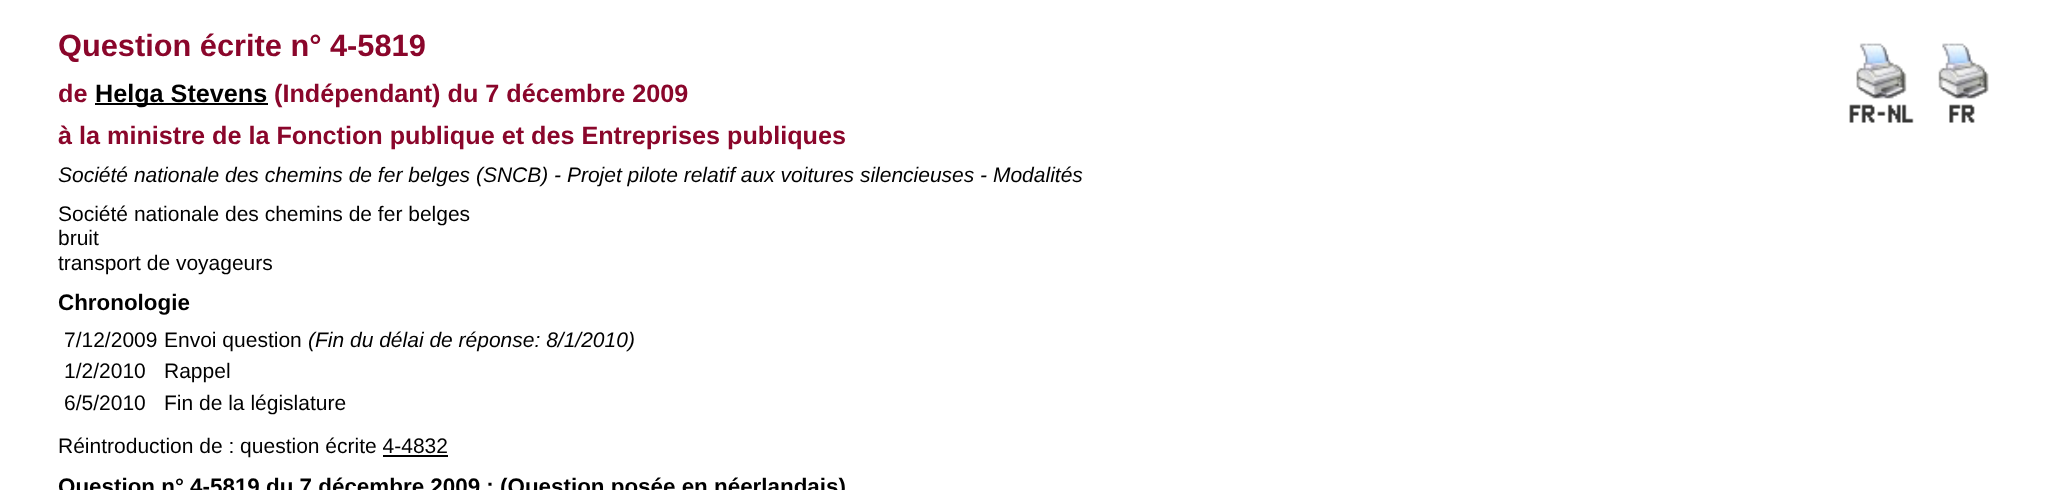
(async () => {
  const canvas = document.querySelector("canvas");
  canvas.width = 2062;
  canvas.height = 490;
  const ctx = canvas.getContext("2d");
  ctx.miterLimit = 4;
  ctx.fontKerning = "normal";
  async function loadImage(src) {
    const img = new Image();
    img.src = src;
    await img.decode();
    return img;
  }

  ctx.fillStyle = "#ffffff";
  ctx.fillRect(0, 0, 2062, 490);
  ctx.drawImage(await loadImage("img/1.png"), 1849, 43, 65, 80);
  ctx.drawImage(await loadImage("img/2.png"), 1938, 43, 51, 80);
  ctx.fillStyle = "#000000";
  ctx.fillRect(95, 103, 173, 2);
  ctx.fillRect(383, 455, 65, 2);
  ctx.font = "bold 30.75px Liberation Sans";
  ctx.fillStyle = "#8a062b";
  ctx.fillText("Question écrite n° 4-5819", 58, 56);
  ctx.font = "bold 25.2px Liberation Sans";
  ctx.fillText("de", 58, 102);
  ctx.fillStyle = "#000000";
  ctx.fillText("Helga Stevens", 95, 102);
  ctx.fillStyle = "#8a062b";
  ctx.fillText("(Indépendant) du 7 décembre 2009", 274, 102);
  ctx.fillText("à la ministre de la Fonction publique et des Entreprises publiques", 58, 144);
  ctx.font = "italic 21px Liberation Sans";
  ctx.fillStyle = "#000000";
  ctx.fillText("Société nationale des chemins de fer belges (SNCB) - Projet pilote relatif aux voitures silencieuses - Modalités", 58, 182);
  ctx.font = "21px Liberation Sans";
  for (const [text, x, y] of [
    ["Société nationale des chemins de fer belges", 58, 221],
    ["bruit", 58, 245],
    ["transport de voyageurs", 58, 270],
  ]) {
    ctx.fillText(text, x, y);
  }
  ctx.font = "bold 22.4px Liberation Sans";
  ctx.fillText("Chronologie", 58, 310);
  ctx.font = "21px Liberation Sans";
  ctx.fillText("7/12/2009", 64, 347);
  ctx.fillText("Envoi question", 164, 347);
  ctx.font = "italic 21px Liberation Sans";
  ctx.fillText("(Fin du délai de réponse: 8/1/2010)", 308, 347);
  ctx.font = "21px Liberation Sans";
  for (const [text, x, y] of [
    ["1/2/2010", 64, 378],
    ["Rappel", 164, 378],
    ["6/5/2010", 64, 410],
    ["Fin de la législature", 164, 410],
    ["Réintroduction de : question écrite 4-4832", 58, 453],
  ]) {
    ctx.fillText(text, x, y);
  }
  ctx.font = "bold 22.4px Liberation Sans";
  ctx.fillText("Question n° 4-5819 du 7 décembre 2009 : (Question posée en néerlandais)", 58, 494);
})();
